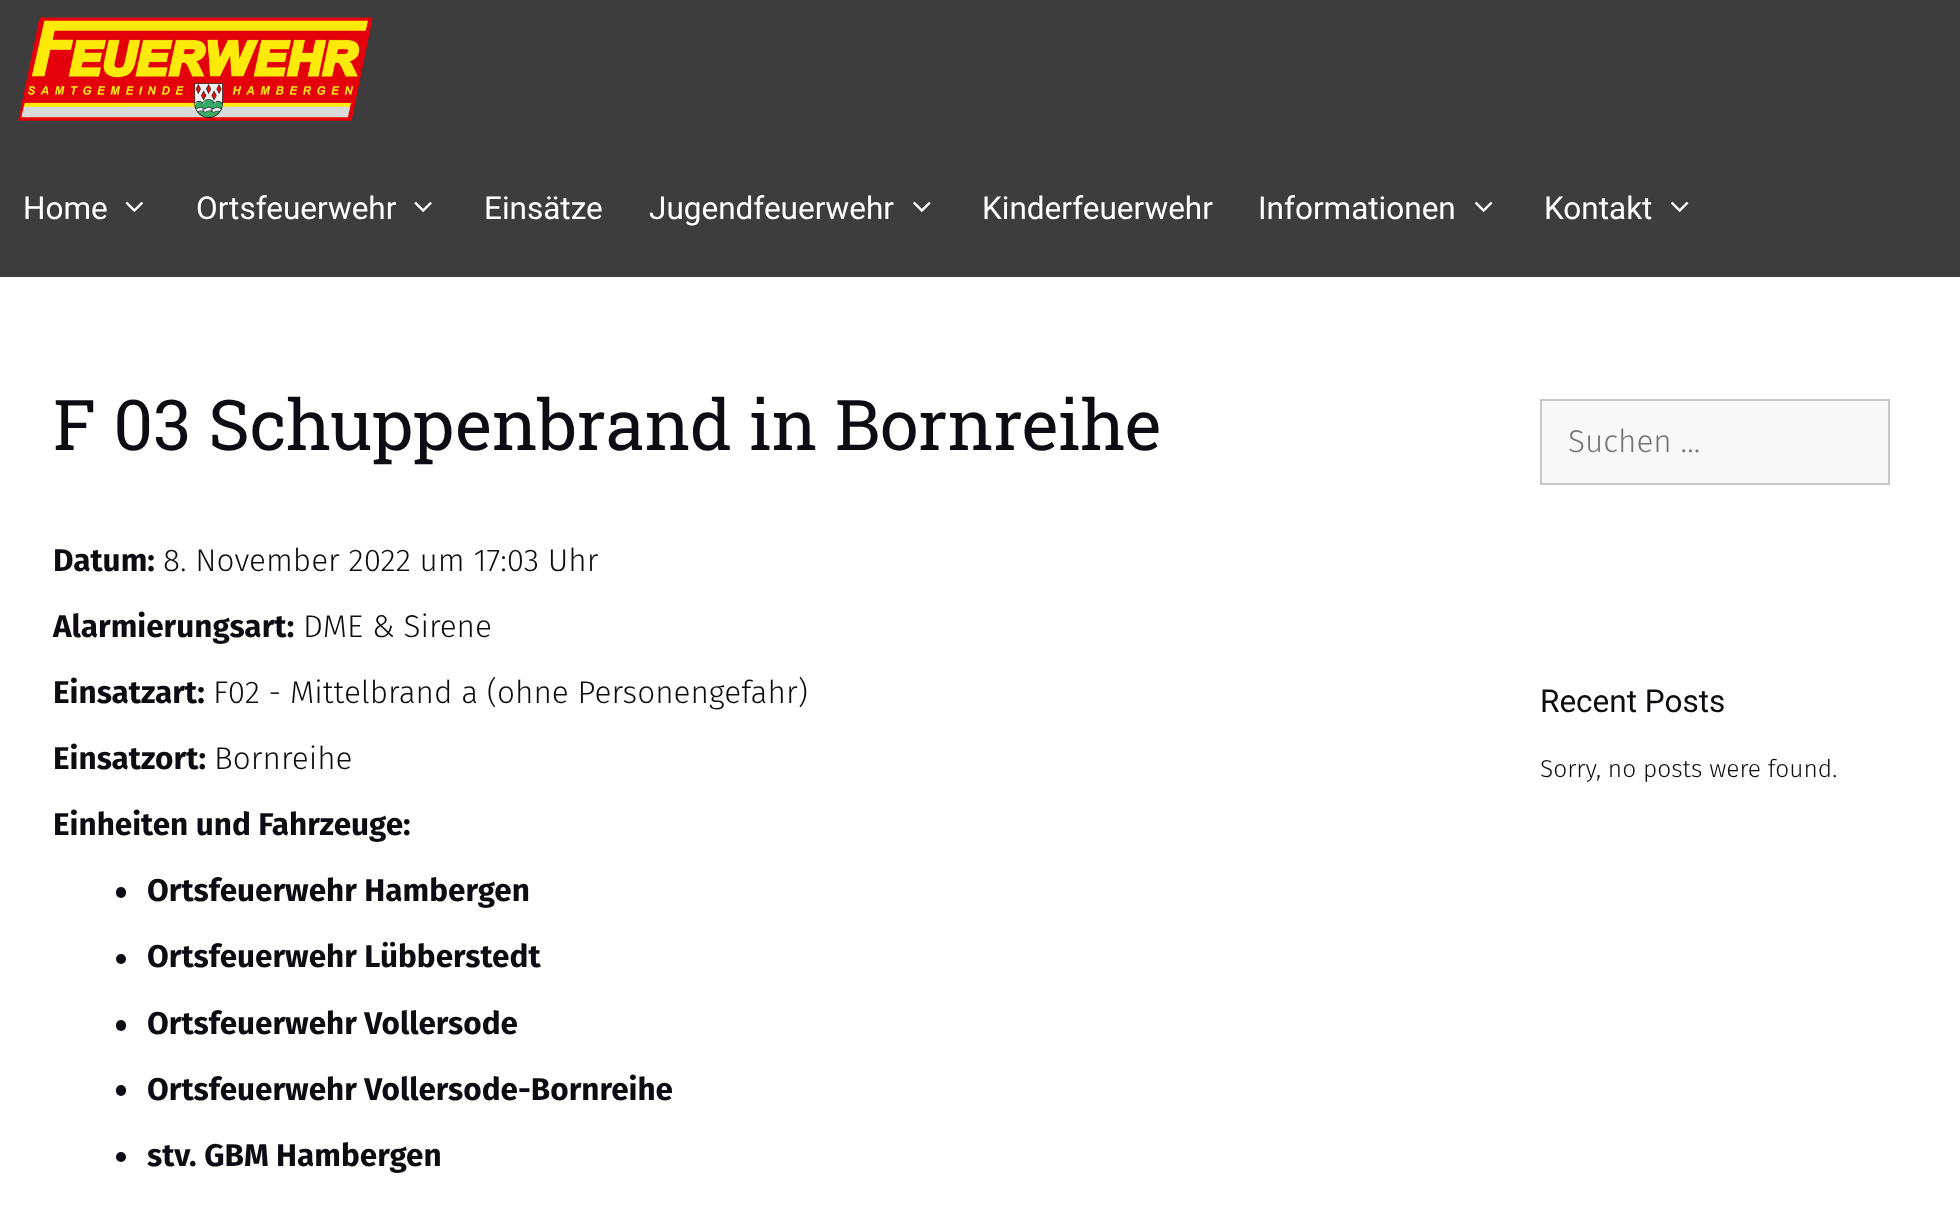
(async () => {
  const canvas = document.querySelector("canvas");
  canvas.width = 1960;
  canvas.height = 1226;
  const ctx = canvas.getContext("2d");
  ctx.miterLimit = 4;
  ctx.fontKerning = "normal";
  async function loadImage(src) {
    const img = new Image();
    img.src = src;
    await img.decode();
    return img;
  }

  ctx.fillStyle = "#ffffff";
  ctx.fillRect(0, 0, 1960, 1226);
  ctx.fillStyle = "#3d3d3d";
  ctx.fillRect(0, 0, 1960, 277);
  ctx.drawImage(await loadImage("img/1.png"), 17, 17, 356, 104);
  ctx.drawImage(await loadImage("img/2.png"), 125, 201, 19, 11);
  ctx.drawImage(await loadImage("img/3.png"), 414, 201, 18, 11);
  ctx.drawImage(await loadImage("img/4.png"), 913, 201, 18, 11);
  ctx.drawImage(await loadImage("img/5.png"), 1474, 201, 19, 11);
  ctx.drawImage(await loadImage("img/5.png"), 1670, 201, 19, 11);
  ctx.fillStyle = "#0e0c12";
  ctx.beginPath();
  ctx.roundRect(116, 887, 10, 11, 5);
  ctx.fill();
  ctx.beginPath();
  ctx.arc(121, 959, 5, 0, Math.PI * 2);
  ctx.fill();
  ctx.beginPath();
  ctx.roundRect(116, 1020, 10, 11, 5);
  ctx.fill();
  ctx.beginPath();
  ctx.roundRect(116, 1085, 10, 11, 5);
  ctx.fill();
  ctx.beginPath();
  ctx.arc(121, 1157, 5, 0, Math.PI * 2);
  ctx.fill();
  ctx.fillStyle = "#f9f8f8";
  ctx.beginPath();
  ctx.rect(1541, 400, 348, 84);
  ctx.fill();
  ctx.strokeStyle = "#c8c6cb";
  ctx.lineWidth = 2;
  ctx.stroke();
  ctx.font = "31.5px Roboto";
  ctx.fillStyle = "#ffffff";
  for (const [text, x, y] of [
    ["Home", 23, 219],
    ["Ortsfeuerwehr", 196, 219],
    ["Einsätze", 484, 219],
    ["Jugendfeuerwehr", 649, 219],
    ["Kinderfeuerwehr", 982, 219],
    ["Informationen", 1258, 219],
    ["Kontakt", 1544, 219],
  ]) {
    ctx.fillText(text, x, y);
  }
  ctx.font = "70px Roboto Slab";
  ctx.fillStyle = "#0e0c12";
  ctx.fillText("F 03 Schuppenbrand in Bornreihe", 53, 450);
  ctx.font = "bold 31.5px Fira Sans";
  ctx.fillText("Datum:", 53, 571);
  ctx.font = "300 31.5px Fira Sans";
  ctx.fillText("8. November 2022 um 17:03 Uhr", 163, 571);
  ctx.font = "bold 31.5px Fira Sans";
  ctx.fillText("Alarmierungsart:", 53, 637);
  ctx.font = "300 31.5px Fira Sans";
  ctx.fillText("DME & Sirene", 303, 637);
  ctx.font = "bold 31.5px Fira Sans";
  ctx.fillText("Einsatzart:", 53, 703);
  ctx.font = "300 31.5px Fira Sans";
  ctx.fillText("F02 - Mittelbrand a (ohne Personengefahr)", 213, 703);
  ctx.font = "bold 31.5px Fira Sans";
  ctx.fillText("Einsatzort:", 53, 769);
  ctx.font = "300 31.5px Fira Sans";
  ctx.fillText("Bornreihe", 214, 769);
  ctx.font = "bold 31.5px Fira Sans";
  for (const [text, x, y] of [
    ["Einheiten und Fahrzeuge:", 53, 835],
    ["Ortsfeuerwehr Hambergen", 147, 901],
    ["Ortsfeuerwehr Lübberstedt", 147, 967],
    ["Ortsfeuerwehr Vollersode", 147, 1034],
    ["Ortsfeuerwehr Vollersode-Bornreihe", 147, 1100],
    ["stv. GBM Hambergen", 147, 1166],
  ]) {
    ctx.fillText(text, x, y);
  }
  ctx.font = "300 31.5px Fira Sans";
  ctx.fillStyle = "#757575";
  ctx.fillText("Suchen …", 1568, 452);
  ctx.font = "31.5px Roboto";
  ctx.fillStyle = "#0e0c12";
  ctx.fillText("Recent Posts", 1540, 712);
  ctx.font = "300 24.5px Fira Sans";
  ctx.fillText("Sorry, no posts were found.", 1540, 777);
})();
